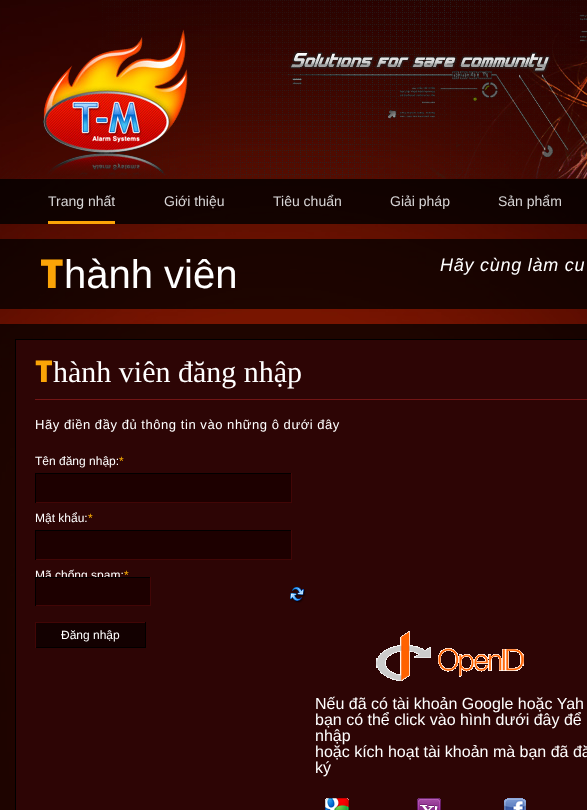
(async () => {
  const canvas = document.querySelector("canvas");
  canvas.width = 587;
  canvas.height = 810;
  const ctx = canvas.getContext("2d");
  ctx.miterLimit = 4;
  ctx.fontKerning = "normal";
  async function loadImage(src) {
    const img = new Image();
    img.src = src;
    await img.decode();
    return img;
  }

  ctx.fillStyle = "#ffffff";
  ctx.fillRect(0, 0, 587, 810);
  ctx.drawImage(await loadImage("img/1.png"), 0, 0, 587, 810);
  ctx.drawImage(await loadImage("img/2.png"), 1, 0, 586, 179);
  for (const [x, y, w, h, color] of [
    [0, 179, 587, 45, "rgba(0, 0, 0, 0.8)"],
    [48, 221, 67, 3, "#fba407"],
    [0, 239, 587, 70, "rgba(0, 0, 0, 0.75)"],
    [0, 324, 587, 486, "rgba(0, 0, 0, 0.75)"],
    [16, 340, 571, 470, "#2d0505"],
    [15, 339, 572, 1, "#000000"],
    [15, 339, 1, 471, "#000000"],
    [35, 399, 552, 1, "#721515"],
    [36, 474, 255, 28, "#1d0000"],
    [35, 473, 257, 1, "#010000"],
    [291, 473, 1, 30, "#420606"],
    [35, 502, 257, 1, "#420606"],
    [35, 473, 1, 30, "#010000"],
    [36, 531, 255, 28, "#1d0000"],
    [35, 530, 257, 1, "#010000"],
    [291, 530, 1, 30, "#420606"],
    [35, 559, 257, 1, "#420606"],
    [35, 530, 1, 30, "#010000"],
  ]) {
    ctx.fillStyle = color;
    ctx.fillRect(x, y, w, h);
  }
  ctx.drawImage(await loadImage("img/3.png"), 290, 587, 16, 16);
  for (const [x, y, w, h, color] of [
    [36, 623, 109, 24, "#130101"],
    [35, 622, 111, 1, "#420606"],
    [145, 622, 1, 26, "#010000"],
    [35, 647, 111, 1, "#010000"],
    [35, 622, 1, 26, "#420606"],
  ]) {
    ctx.fillStyle = color;
    ctx.fillRect(x, y, w, h);
  }
  ctx.drawImage(await loadImage("img/4.png"), 376, 631, 148, 50);
  ctx.drawImage(await loadImage("img/5.png"), 325, 798, 24, 12);
  ctx.drawImage(await loadImage("img/6.png"), 417, 798, 24, 12);
  ctx.drawImage(await loadImage("img/7.png"), 504, 798, 22, 12);
  ctx.font = "14px Liberation Sans";
  ctx.fillStyle = "#d8d6d6";
  for (const [text, x, y] of [
    ["Trang nhất", 48, 206],
    ["Giới thiệu", 164, 206],
    ["Tiêu chuẩn", 273, 206],
    ["Giải pháp", 390, 206],
    ["Sản phẩm", 498, 206],
  ]) {
    ctx.fillText(text, x, y);
  }
  ctx.font = "900 40px Noto Sans";
  ctx.fillStyle = "#fba407";
  ctx.fillText("T", 40, 288);
  ctx.font = "40px Liberation Sans";
  ctx.fillStyle = "#ffffff";
  ctx.fillText("hành viên", 64, 288);
  ctx.letterSpacing = "0.75px";
  ctx.font = "italic 18px Liberation Sans";
  ctx.fillText("Hãy cùng làm cu", 440, 271);
  ctx.letterSpacing = "0px";
  ctx.font = "900 30px Noto Sans";
  ctx.fillStyle = "#fba407";
  ctx.fillText("T", 35, 382);
  ctx.font = "30px Liberation Serif";
  ctx.fillStyle = "#ffffff";
  ctx.fillText("hành viên đăng nhập", 53, 382);
  ctx.letterSpacing = "0.55px";
  ctx.font = "13px Liberation Sans";
  ctx.fillText("Hãy điền đầy đủ thông tin vào những ô dưới đây", 35, 429);
  ctx.letterSpacing = "0px";
  ctx.font = "12px Liberation Sans";
  ctx.fillText("Tên đăng nhập:", 35, 465);
  ctx.fillStyle = "#fdb004";
  ctx.fillText("*", 119, 465);
  ctx.fillStyle = "#ffffff";
  ctx.fillText("Mật khẩu:", 35, 522);
  ctx.fillStyle = "#fdb004";
  ctx.fillText("*", 88, 522);
  ctx.fillStyle = "#ffffff";
  ctx.fillText("Mã chống spam:", 35, 579);
  ctx.fillStyle = "#fdb004";
  ctx.fillText("*", 124, 579);
  for (const [x, y, w, h, color] of [
    [36, 578, 114, 27, "#1d0000"],
    [35, 577, 116, 1, "#010000"],
    [150, 577, 1, 29, "#420606"],
    [35, 605, 116, 1, "#420606"],
    [35, 577, 1, 29, "#010000"],
  ]) {
    ctx.fillStyle = color;
    ctx.fillRect(x, y, w, h);
  }
  ctx.fillStyle = "#ffffff";
  ctx.fillText("Đăng nhập", 61, 639);
  ctx.font = "16px Liberation Sans";
  for (const [text, x, y] of [
    ["Nếu đã có tài khoản Google hoặc Yah", 315, 709],
    ["bạn có thể click vào hình dưới đây để", 315, 725],
    ["nhập", 315, 741],
    ["hoặc kích hoạt tài khoản mà bạn đã đă", 315, 757],
    ["ký", 315, 773],
  ]) {
    ctx.fillText(text, x, y);
  }
})();
